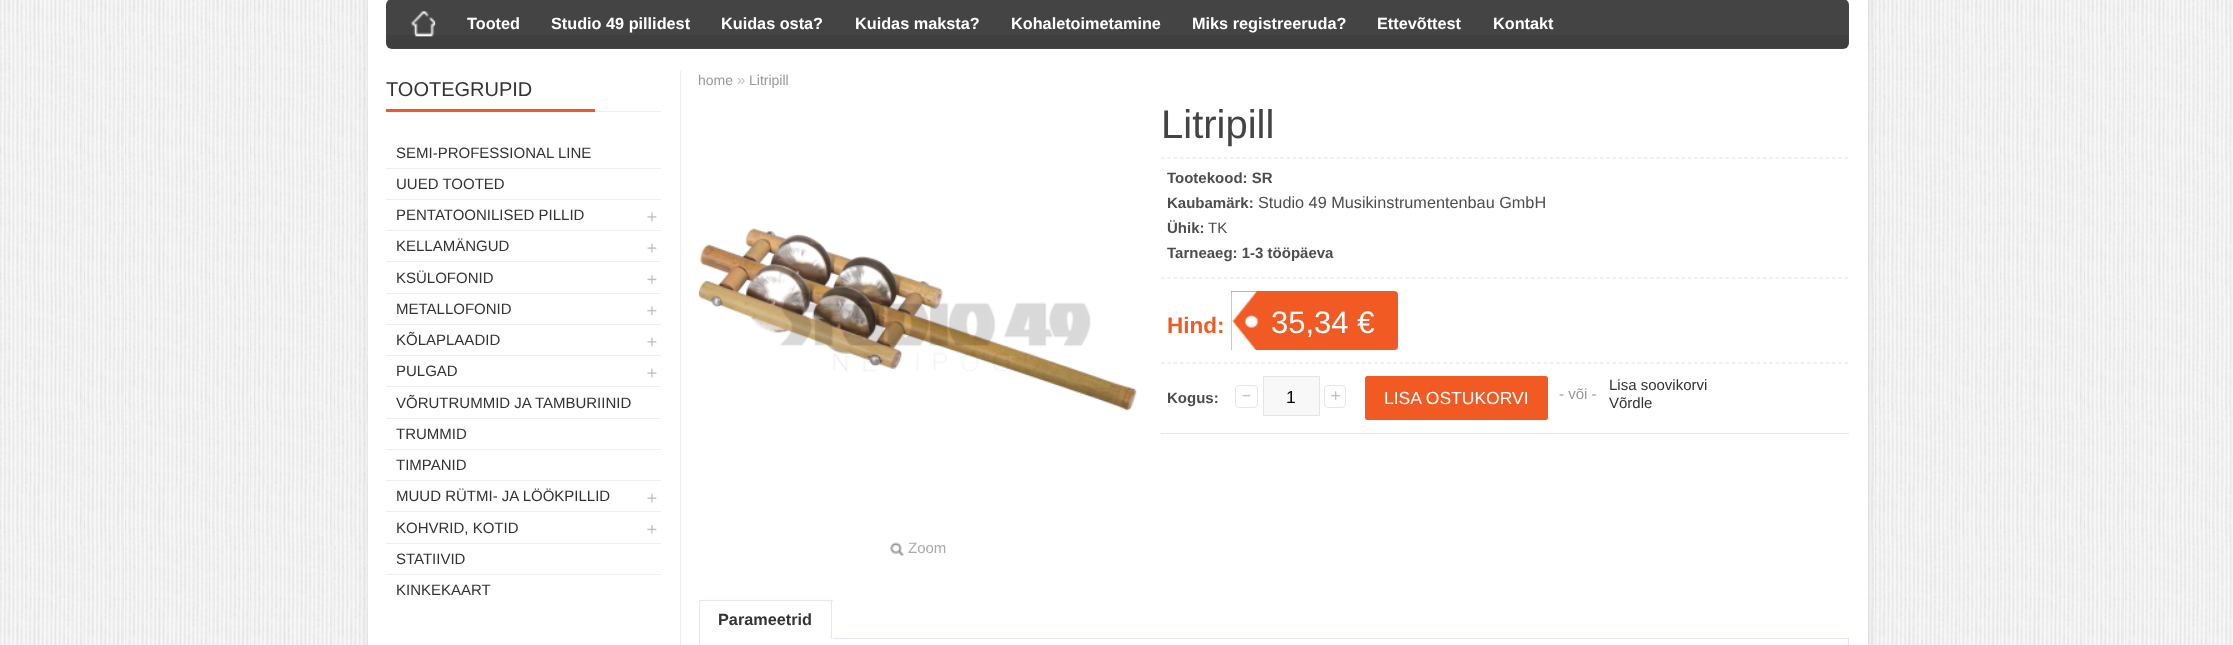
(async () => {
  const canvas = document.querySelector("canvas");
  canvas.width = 2233;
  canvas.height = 645;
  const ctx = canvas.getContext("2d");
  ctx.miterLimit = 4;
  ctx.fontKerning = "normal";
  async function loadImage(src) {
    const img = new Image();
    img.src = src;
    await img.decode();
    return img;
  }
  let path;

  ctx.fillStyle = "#f8f8fa";
  ctx.fillRect(0, 0, 2233, 645);
  ctx.drawImage(await loadImage("img/1.png"), 0, 0, 2233, 645);
  ctx.fillStyle = "rgba(0, 0, 0, 0.08)";
  ctx.filter = "blur(5px)";
  ctx.beginPath();
  ctx.roundRect(368, -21, 1500, 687, 6);
  ctx.fill();
  ctx.filter = "none";
  ctx.fillStyle = "#ffffff";
  ctx.fillRect(368, 0, 1500, 645);
  ctx.fillStyle = "#444444";
  ctx.beginPath();
  ctx.roundRect(386, -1, 1463, 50, 6);
  ctx.fill();
  ctx.drawImage(await loadImage("img/2.png"), 387, 35, 1461, 13);
  ctx.drawImage(await loadImage("img/3.png"), 411, 11, 25, 26);
  for (const [x, y, w, h, color] of [
    [680, 71, 1, 574, "#eeeeee"],
    [595, 111, 66, 1, "#eeeeee"],
    [386, 109, 209, 3, "#f15a23"],
    [386, 168, 275, 1, "#eeeeee"],
    [386, 199, 275, 1, "#eeeeee"],
  ]) {
    ctx.fillStyle = color;
    ctx.fillRect(x, y, w, h);
  }
  ctx.drawImage(await loadImage("img/4.png"), 647, 212, 10, 10);
  ctx.fillRect(386, 230, 275, 1);
  ctx.drawImage(await loadImage("img/5.png"), 647, 243, 10, 10);
  ctx.fillRect(386, 261, 275, 1);
  ctx.drawImage(await loadImage("img/6.png"), 647, 275, 10, 9);
  ctx.fillRect(386, 293, 275, 1);
  ctx.drawImage(await loadImage("img/7.png"), 647, 306, 10, 10);
  ctx.fillRect(386, 324, 275, 1);
  ctx.drawImage(await loadImage("img/4.png"), 647, 337, 10, 10);
  ctx.fillRect(386, 355, 275, 1);
  ctx.drawImage(await loadImage("img/5.png"), 647, 368, 10, 10);
  for (const [x, y, w, h, color] of [
    [386, 386, 275, 1, "#eeeeee"],
    [386, 418, 275, 1, "#eeeeee"],
    [386, 449, 275, 1, "#eeeeee"],
    [386, 480, 275, 1, "#eeeeee"],
  ]) {
    ctx.fillStyle = color;
    ctx.fillRect(x, y, w, h);
  }
  ctx.drawImage(await loadImage("img/5.png"), 647, 493, 10, 10);
  ctx.fillRect(386, 511, 275, 1);
  ctx.drawImage(await loadImage("img/6.png"), 647, 525, 10, 9);
  ctx.fillRect(386, 543, 275, 1);
  ctx.fillRect(386, 574, 275, 1);
  path = new Path2D("M1161 158H1849");
  ctx.strokeStyle = "#e2e2e2";
  ctx.lineWidth = 1.2;
  ctx.setLineDash([3.75, 2.52]);
  ctx.stroke(path);
  path = new Path2D("M1161 278H1849");
  ctx.stroke(path);
  path = new Path2D("M1161 363H1849");
  ctx.stroke(path);
  ctx.fillStyle = "#f15a23";
  ctx.beginPath();
  ctx.roundRect(1231, 291, 167, 59, [0, 4, 4, 0]);
  ctx.fill();
  ctx.drawImage(await loadImage("img/8.png"), 1231, 291, 28, 59);
  ctx.fillStyle = "#e7e7e7";
  ctx.fillRect(1161, 433, 688, 1);
  ctx.drawImage(await loadImage("img/9.png"), 1242, 394, 9, 3);
  ctx.beginPath();
  ctx.roundRect(1235.5, 385.5, 22, 22, 3.5);
  ctx.strokeStyle = "#e6e6e6";
  ctx.lineWidth = 1;
  ctx.setLineDash([]);
  ctx.stroke();
  ctx.fillStyle = "#f8f8f8";
  ctx.beginPath();
  ctx.rect(1263.5, 376.5, 56, 39);
  ctx.fill();
  ctx.strokeStyle = "#e4e4e4";
  ctx.stroke();
  ctx.drawImage(await loadImage("img/10.png"), 1331, 391, 10, 10);
  ctx.beginPath();
  ctx.roundRect(1324.5, 385.5, 21, 22, 3.5);
  ctx.strokeStyle = "#e6e6e6";
  ctx.stroke();
  ctx.fillStyle = "#f15a23";
  ctx.beginPath();
  ctx.roundRect(1365, 376, 183, 44, 2.5);
  ctx.fill();
  ctx.drawImage(await loadImage("img/11.png"), 698, 228, 439, 183);
  ctx.drawImage(await loadImage("img/12.png"), 890, 542, 14, 15);
  for (const [x, y, w, h, color] of [
    [833, 638, 1016, 1, "#e4e8f1"],
    [699, 600, 134, 1, "#e4e8f1"],
    [831, 600, 1, 39, "#e4e8f1"],
    [699, 600, 1, 45, "#e4e8f1"],
    [1848, 639, 1, 6, "#e4e8f1"],
  ]) {
    ctx.fillStyle = color;
    ctx.fillRect(x, y, w, h);
  }
  ctx.font = "bold 16.25px Liberation Sans";
  ctx.fillStyle = "#ffffff";
  for (const [text, x, y] of [
    ["Tooted", 467, 29],
    ["Studio 49 pillidest", 551, 29],
    ["Kuidas osta?", 721, 29],
    ["Kuidas maksta?", 855, 29],
    ["Kohaletoimetamine", 1011, 29],
    ["Miks registreeruda?", 1192, 29],
    ["Ettevõttest", 1377, 29],
    ["Kontakt", 1493, 29],
  ]) {
    ctx.fillText(text, x, y);
  }
  ctx.font = "20px Liberation Sans";
  ctx.fillStyle = "#333333";
  ctx.fillText("TOOTEGRUPID", 386, 96);
  ctx.font = "15px Liberation Sans";
  for (const [text, x, y] of [
    ["SEMI-PROFESSIONAL LINE", 396, 158],
    ["UUED TOOTED", 396, 189],
    ["PENTATOONILISED PILLID", 396, 220],
    ["KELLAMÄNGUD", 396, 251],
    ["KSÜLOFONID", 396, 283],
    ["METALLOFONID", 396, 314],
    ["KÕLAPLAADID", 396, 345],
    ["PULGAD", 396, 376],
    ["VÕRUTRUMMID JA TAMBURIINID", 396, 408],
    ["TRUMMID", 396, 439],
    ["TIMPANID", 396, 470],
    ["MUUD RÜTMI- JA LÖÖKPILLID", 396, 501],
    ["KOHVRID, KOTID", 396, 533],
    ["STATIIVID", 396, 564],
    ["KINKEKAART", 396, 595],
  ]) {
    ctx.fillText(text, x, y);
  }
  ctx.font = "14px Liberation Sans";
  ctx.fillStyle = "#999999";
  ctx.fillText("home", 698, 85);
  ctx.font = "15px Liberation Sans";
  ctx.fillStyle = "#c2c2c2";
  ctx.fillText("»", 737, 85);
  ctx.font = "14px Liberation Sans";
  ctx.fillStyle = "#999999";
  ctx.fillText("Litripill", 749, 85);
  ctx.font = "40px Liberation Sans";
  ctx.fillStyle = "#444444";
  ctx.fillText("Litripill", 1161, 138);
  ctx.font = "bold 15px Liberation Sans";
  ctx.fillStyle = "#4d4d4d";
  ctx.fillText("Tootekood: SR", 1167, 183);
  ctx.fillText("Kaubamärk:", 1167, 208);
  ctx.font = "16.25px Liberation Sans";
  ctx.fillText("Studio 49 Musikinstrumentenbau GmbH", 1258, 208);
  ctx.font = "bold 15px Liberation Sans";
  ctx.fillText("Ühik:", 1167, 233);
  ctx.font = "15px Liberation Sans";
  ctx.fillText("TK", 1208, 233);
  ctx.font = "bold 15px Liberation Sans";
  ctx.fillText("Tarneaeg: 1-3 tööpäeva", 1167, 258);
  ctx.font = "bold 22.5px Liberation Sans";
  ctx.fillStyle = "#f15a23";
  ctx.fillText("Hind:", 1167, 333);
  ctx.font = "31px Liberation Sans";
  ctx.fillStyle = "#ffffff";
  ctx.fillText("35,34 €", 1271, 333);
  ctx.font = "bold 15px Liberation Sans";
  ctx.fillStyle = "#4d4d4d";
  ctx.fillText("Kogus:", 1167, 403);
  ctx.font = "17.5px Liberation Sans";
  ctx.fillStyle = "#000000";
  ctx.fillText("1", 1286, 403);
  ctx.fillStyle = "#ffffff";
  ctx.fillText("LISA OSTUKORVI", 1384, 404);
  ctx.font = "15px Liberation Sans";
  ctx.fillStyle = "#999999";
  ctx.fillText("- või -", 1559, 399);
  ctx.fillStyle = "#333333";
  ctx.fillText("Lisa soovikorvi", 1609, 390);
  ctx.fillText("Võrdle", 1609, 408);
  ctx.fillStyle = "#ababab";
  ctx.fillText("Zoom", 908, 553);
  ctx.font = "bold 16.25px Liberation Sans";
  ctx.fillStyle = "#333333";
  ctx.fillText("Parameetrid", 718, 625);
})();
